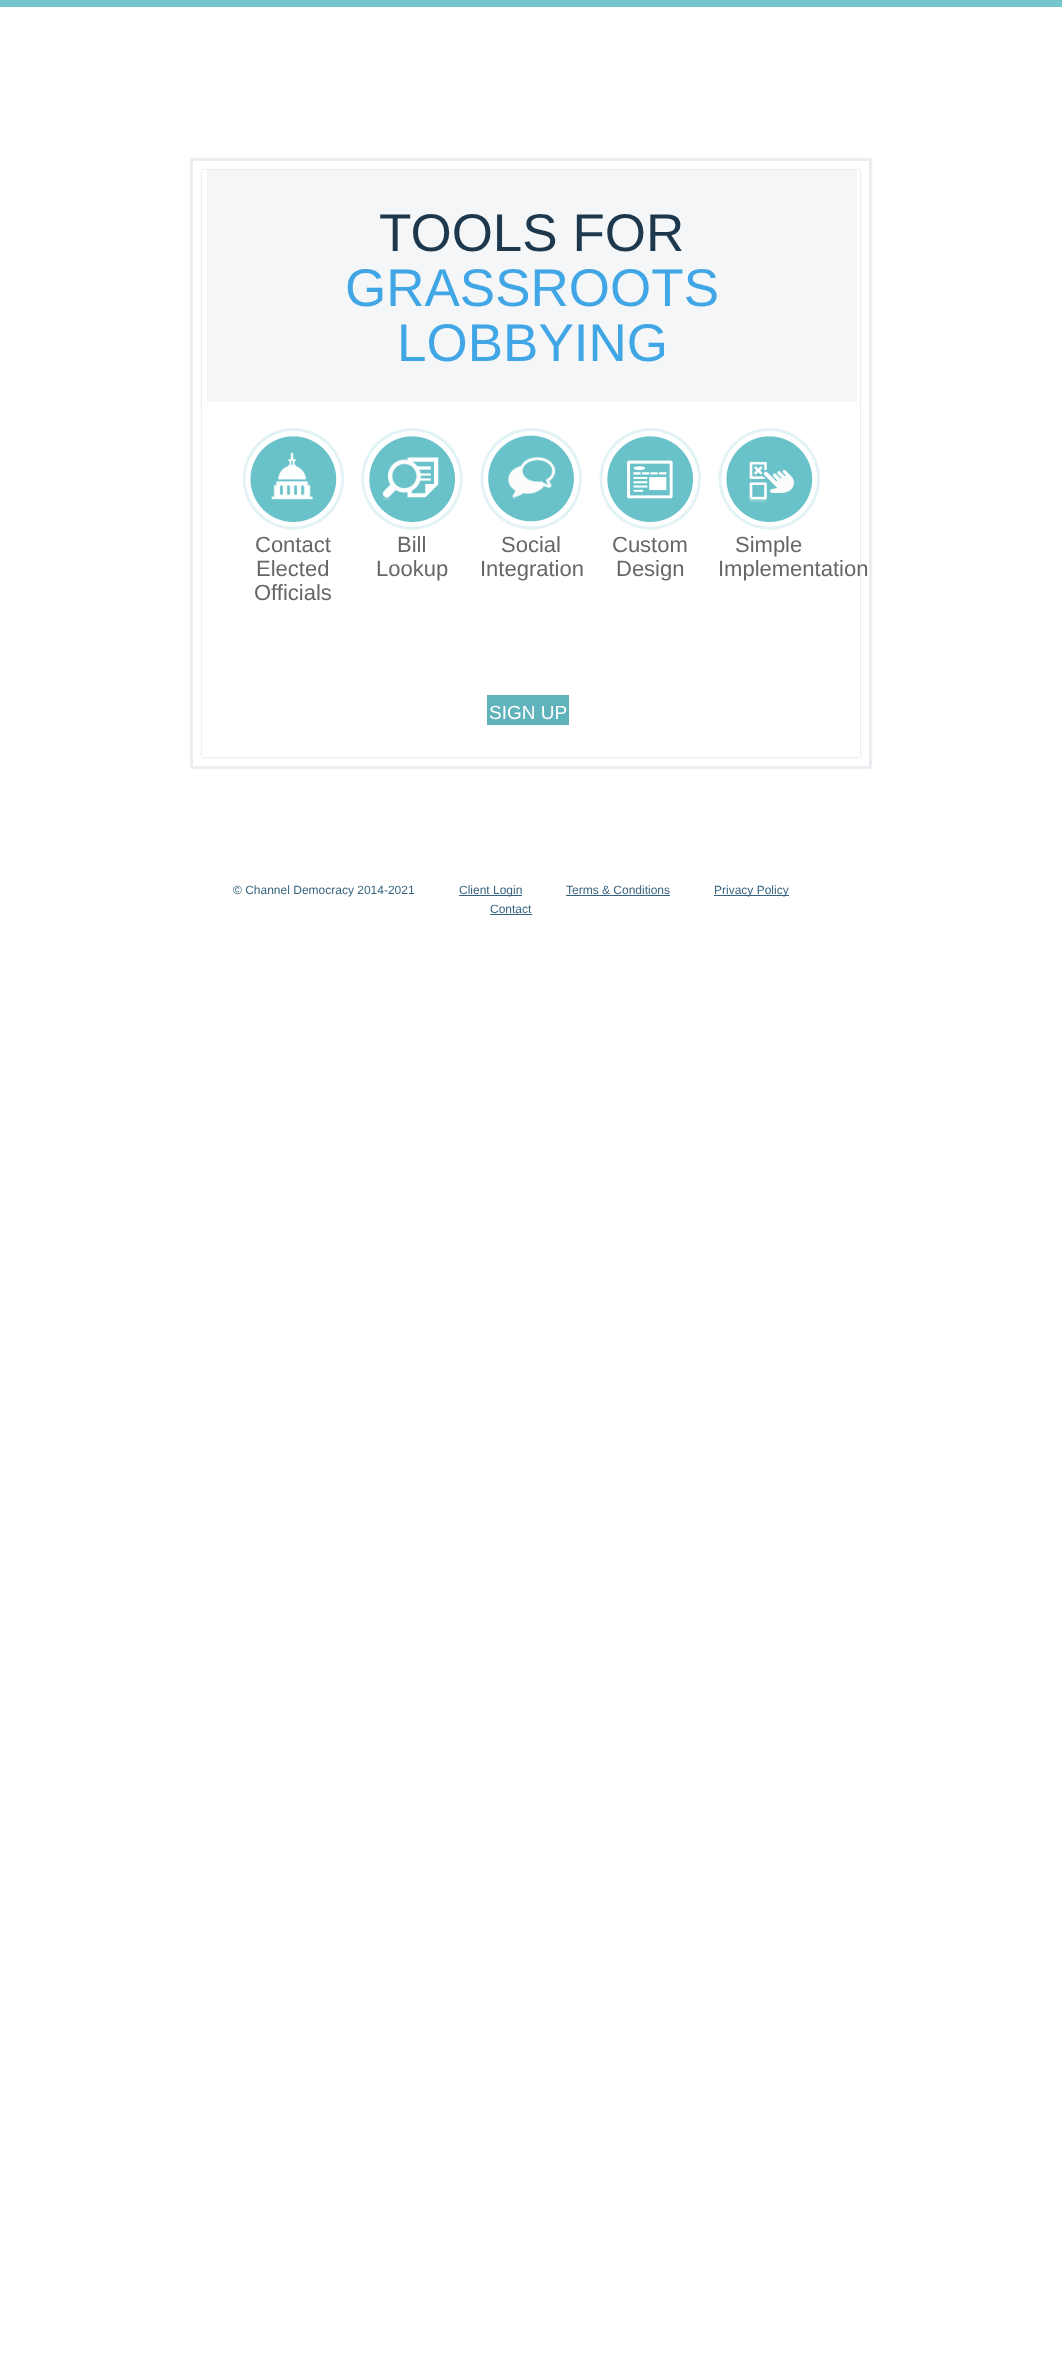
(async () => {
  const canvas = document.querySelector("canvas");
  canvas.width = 1062;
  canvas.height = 2371;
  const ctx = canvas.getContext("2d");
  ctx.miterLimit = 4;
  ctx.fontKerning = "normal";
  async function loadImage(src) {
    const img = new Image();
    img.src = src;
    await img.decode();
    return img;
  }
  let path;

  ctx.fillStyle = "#ffffff";
  ctx.fillRect(0, 0, 1062, 2371);
  ctx.fillStyle = "#74c6cc";
  ctx.fillRect(0, 0, 1062, 7);
  ctx.save();
  path = new Path2D("M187 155H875V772H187ZM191 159H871V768H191Z");
  ctx.clip(path, "evenodd");
  ctx.fillStyle = "rgba(0, 0, 0, 0.2)";
  ctx.filter = "blur(1px)";
  ctx.beginPath();
  ctx.rect(191, 159, 680, 609);
  ctx.fill();
  ctx.filter = "none";
  ctx.restore();
  ctx.strokeStyle = "#ecedf2";
  ctx.lineWidth = 2;
  ctx.strokeRect(192, 160, 678, 607);
  ctx.save();
  path = new Path2D("M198 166H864V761H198ZM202 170H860V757H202Z");
  ctx.clip(path, "evenodd");
  ctx.fillStyle = "rgba(0, 0, 0, 0.2)";
  ctx.filter = "blur(1px)";
  ctx.beginPath();
  ctx.rect(202, 170, 658, 587);
  ctx.fill();
  ctx.filter = "none";
  ctx.restore();
  ctx.fillStyle = "#f4f6f7";
  ctx.fillRect(207, 170, 650, 232);
  ctx.drawImage(await loadImage("img/1.png"), 242, 428, 102, 102);
  ctx.drawImage(await loadImage("img/2.png"), 361, 428, 102, 102);
  ctx.drawImage(await loadImage("img/3.png"), 480, 428, 102, 102);
  ctx.drawImage(await loadImage("img/4.png"), 599, 428, 102, 102);
  ctx.drawImage(await loadImage("img/5.png"), 718, 428, 102, 102);
  for (const [x, y, w, h, color] of [
    [487, 695, 82, 30, "#60b2bb"],
    [459, 895, 63, 1, "#36637f"],
    [566, 895, 104, 1, "#36637f"],
    [714, 895, 75, 1, "#36637f"],
    [490, 914, 42, 1, "#36637f"],
  ]) {
    ctx.fillStyle = color;
    ctx.fillRect(x, y, w, h);
  }
  ctx.font = "53px Liberation Sans";
  ctx.fillStyle = "#1d384d";
  ctx.fillText("TOOLS FOR", 379, 251);
  ctx.fillStyle = "#41a6e5";
  ctx.fillText("GRASSROOTS", 345, 306);
  ctx.fillText("LOBBYING", 397, 361);
  ctx.font = "22px Liberation Sans";
  ctx.fillStyle = "#666666";
  for (const [text, x, y] of [
    ["Contact", 255, 552],
    ["Elected", 256, 576],
    ["Officials", 254, 600],
    ["Bill", 397, 552],
    ["Lookup", 376, 576],
    ["Social", 501, 552],
    ["Integration", 480, 576],
    ["Custom", 612, 552],
    ["Design", 616, 576],
    ["Simple", 735, 552],
    ["Implementation", 718, 576],
  ]) {
    ctx.fillText(text, x, y);
  }
  ctx.font = "19px Liberation Sans";
  ctx.fillStyle = "#ffffff";
  ctx.fillText("SIGN UP", 489, 719);
  ctx.font = "12px Liberation Sans";
  ctx.fillStyle = "#36637f";
  for (const [text, x, y] of [
    ["© Channel Democracy 2014-2021", 233, 894],
    ["Client Login", 459, 894],
    ["Terms & Conditions", 566, 894],
    ["Privacy Policy", 714, 894],
    ["Contact", 490, 913],
  ]) {
    ctx.fillText(text, x, y);
  }
})();
